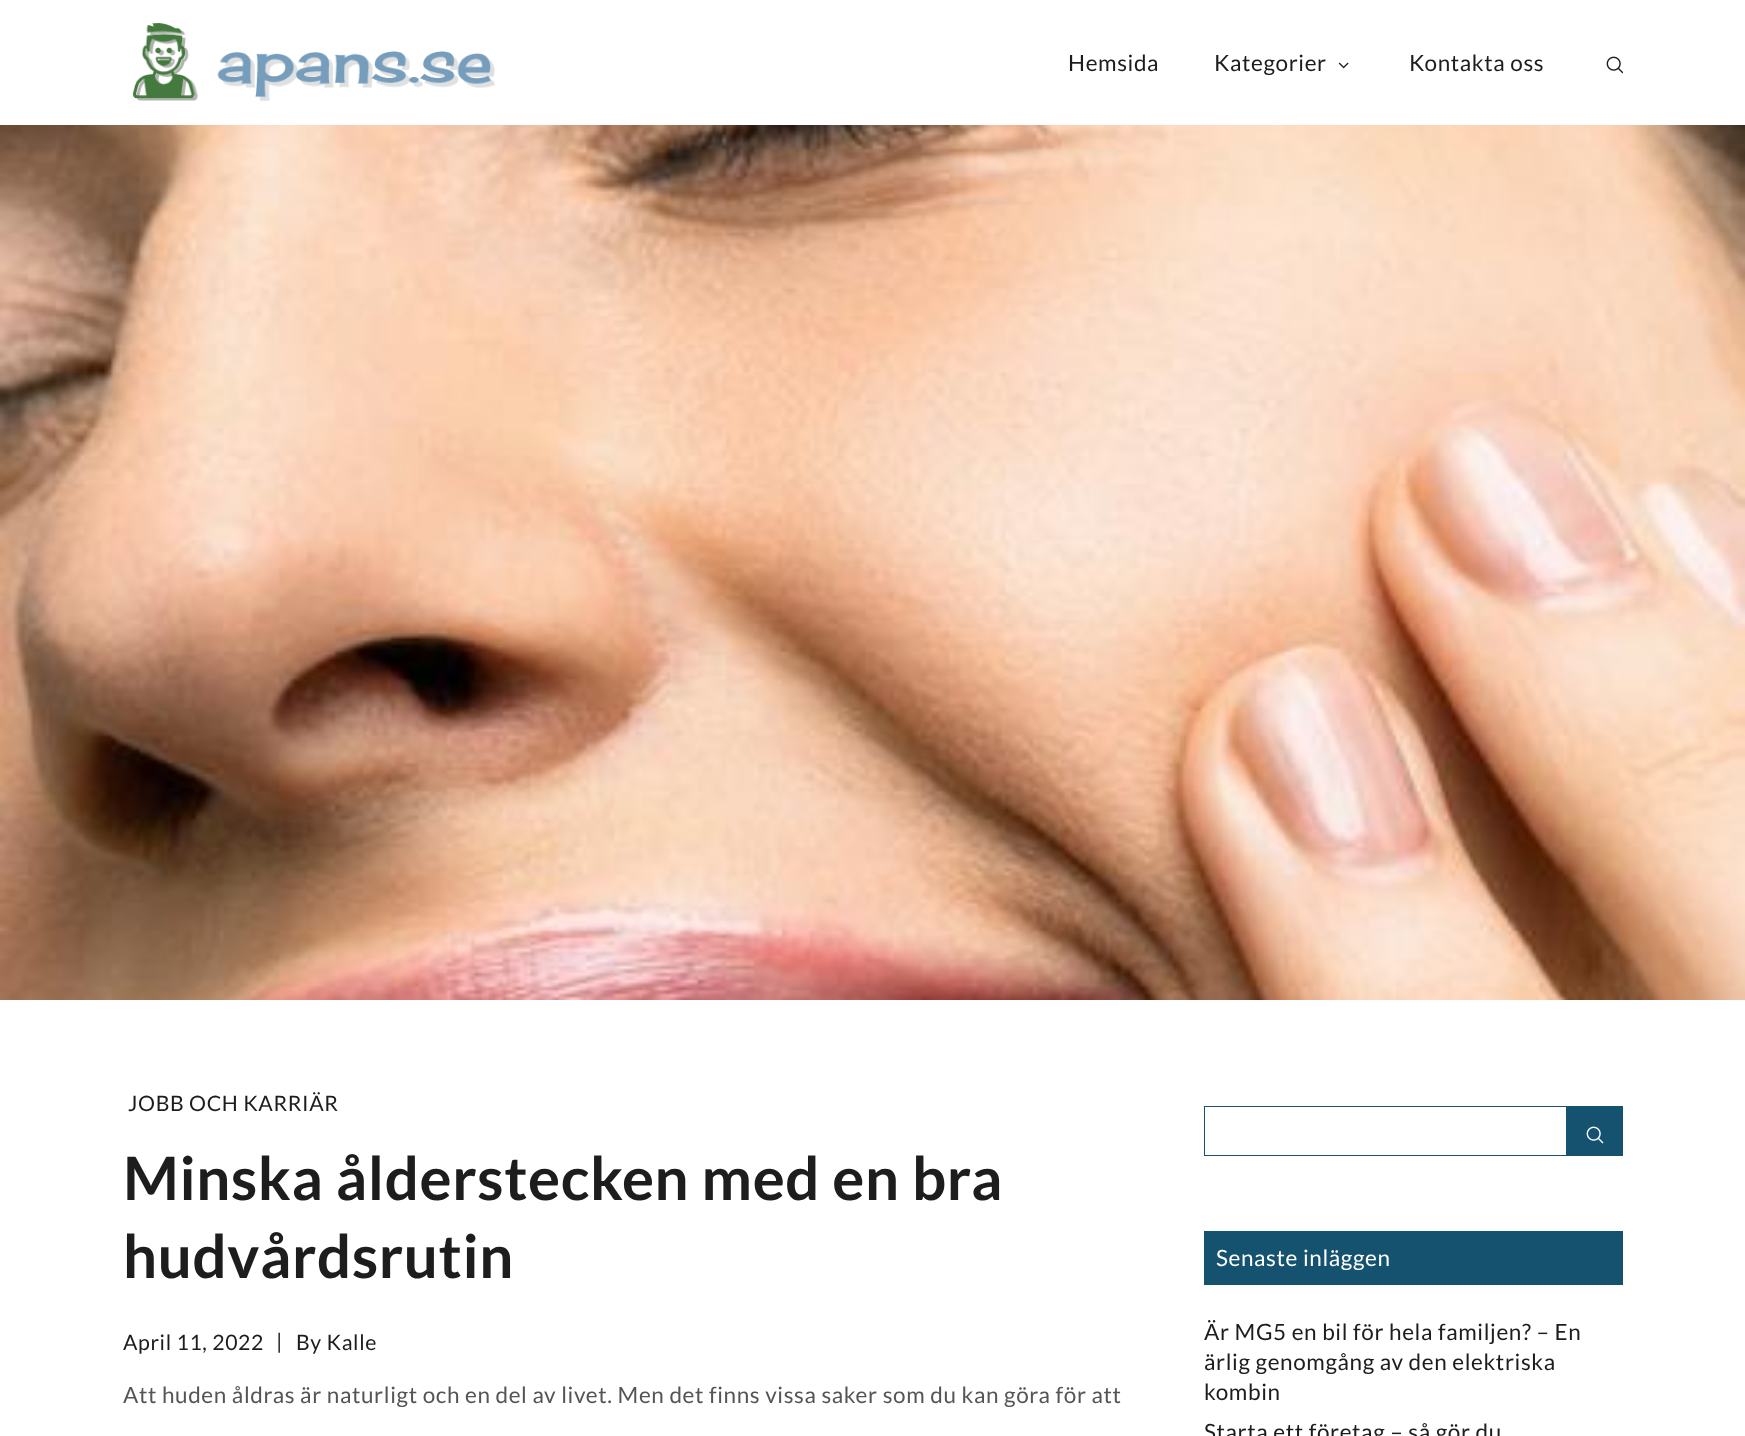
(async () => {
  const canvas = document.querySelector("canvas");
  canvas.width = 1745;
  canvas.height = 1436;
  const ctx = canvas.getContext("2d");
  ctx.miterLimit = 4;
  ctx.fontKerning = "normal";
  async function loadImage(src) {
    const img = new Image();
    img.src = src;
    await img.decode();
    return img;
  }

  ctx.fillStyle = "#ffffff";
  ctx.fillRect(0, 0, 1745, 1436);
  ctx.drawImage(await loadImage("img/1.png"), 133, 23, 362, 78);
  ctx.drawImage(await loadImage("img/2.png"), 1338, 62, 11, 7);
  ctx.drawImage(await loadImage("img/3.png"), 1606, 56, 17, 18);
  ctx.drawImage(await loadImage("img/4.png"), 0, 125, 1745, 875);
  ctx.strokeStyle = "#14526f";
  ctx.strokeRect(1204.5, 1106.5, 418, 49);
  ctx.fillStyle = "#14526f";
  ctx.fillRect(1566, 1107, 56, 48);
  ctx.drawImage(await loadImage("img/5.png"), 1586, 1126, 18, 18);
  ctx.fillRect(1204, 1231, 419, 54);
  ctx.letterSpacing = "0.62px";
  ctx.font = "22.5px Lato";
  ctx.fillStyle = "#1d1d1d";
  for (const [text, x, y] of [
    ["Hemsida", 1068, 71],
    ["Kategorier", 1214, 71],
    ["Kontakta oss", 1409, 71],
  ]) {
    ctx.fillText(text, x, y);
  }
  ctx.font = "21.25px Lato";
  ctx.fillText("JOBB OCH KARRIÄR", 128, 1111);
  ctx.font = "bold 60px Lato";
  ctx.fillText("Minska ålderstecken med en bra", 123, 1200);
  ctx.fillText("hudvårdsrutin", 123, 1278);
  ctx.font = "21.25px Lato";
  for (const [text, x, y] of [
    ["April 11, 2022", 123, 1350],
    ["|", 276, 1349],
    ["By Kalle", 296, 1350],
  ]) {
    ctx.fillText(text, x, y);
  }
  ctx.font = "22.5px Lato";
  ctx.fillStyle = "#555555";
  ctx.fillText("Att huden åldras är naturligt och en del av livet. Men det finns vissa saker som du kan göra för att", 123, 1403);
  ctx.fillStyle = "#ffffff";
  ctx.fillText("Senaste inläggen", 1216, 1266);
  ctx.fillStyle = "#1d1d1d";
  for (const [text, x, y] of [
    ["Är MG5 en bil för hela familjen? – En", 1204, 1340],
    ["ärlig genomgång av den elektriska", 1204, 1370],
    ["kombin", 1204, 1400],
    ["Starta ett företag – så gör du", 1204, 1440],
  ]) {
    ctx.fillText(text, x, y);
  }
})();
